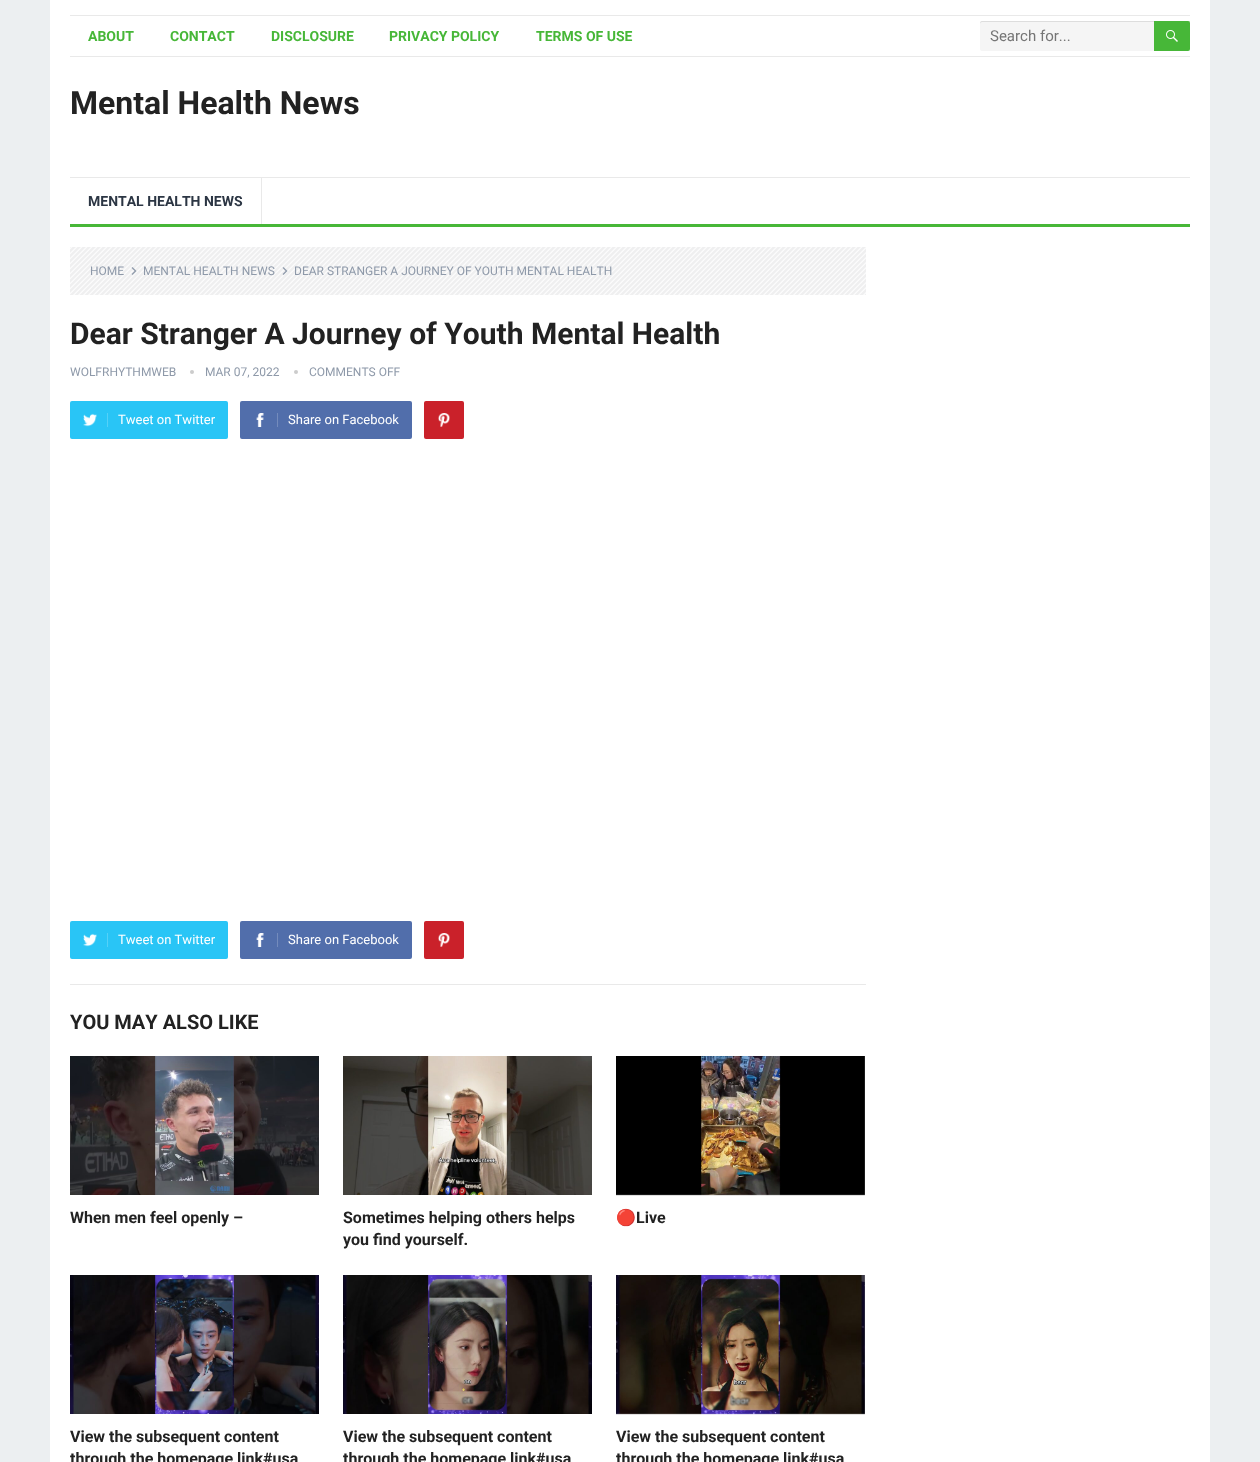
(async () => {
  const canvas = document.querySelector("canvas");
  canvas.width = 1260;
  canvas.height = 1462;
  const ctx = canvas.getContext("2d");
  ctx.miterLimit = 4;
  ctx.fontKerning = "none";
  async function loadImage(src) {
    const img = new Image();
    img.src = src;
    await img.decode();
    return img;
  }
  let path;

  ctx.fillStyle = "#eceff1";
  ctx.fillRect(0, 0, 1260, 1462);
  for (const [x, y, w, h, color] of [
    [50, 0, 1160, 1462, "#ffffff"],
    [70, 15, 1120, 1, "#e9e9e9"],
    [70, 56, 1120, 1, "#e9e9e9"],
  ]) {
    ctx.fillStyle = color;
    ctx.fillRect(x, y, w, h);
  }
  ctx.fillStyle = "#f5f5f5";
  ctx.beginPath();
  ctx.roundRect(980, 21, 210, 30, [2, 0, 0, 2]);
  ctx.fill();
  ctx.fillStyle = "#dddddd";
  path = new Path2D("M982 22H1190V21H982C980 21 980 23 980 24C980 23 981 22 982 22Z");
  ctx.fill(path);
  ctx.fillStyle = "#47b738";
  ctx.beginPath();
  ctx.roundRect(1154, 21, 36, 30, [0, 2, 2, 0]);
  ctx.fill();
  ctx.drawImage(await loadImage("img/1.png"), 1166, 30, 12, 12);
  for (const [x, y, w, h, color] of [
    [70, 177, 1120, 1, "#e9e9e9"],
    [70, 224, 1120, 3, "#47b738"],
    [261, 178, 1, 46, "#e9e9e9"],
  ]) {
    ctx.fillStyle = color;
    ctx.fillRect(x, y, w, h);
  }
  ctx.drawImage(await loadImage("img/2.png"), 70, 247, 796, 48);
  ctx.drawImage(await loadImage("img/3.png"), 131, 267, 6, 8);
  ctx.drawImage(await loadImage("img/4.png"), 282, 267, 6, 8);
  ctx.fillStyle = "#cccccc";
  ctx.beginPath();
  ctx.arc(192, 372, 2, 0, Math.PI * 2);
  ctx.fill();
  ctx.beginPath();
  ctx.arc(296, 372, 2, 0, Math.PI * 2);
  ctx.fill();
  ctx.fillStyle = "#29c5f6";
  ctx.beginPath();
  ctx.roundRect(70, 401, 158, 38, 2);
  ctx.fill();
  ctx.drawImage(await loadImage("img/5.png"), 83, 413, 14, 14);
  ctx.fillStyle = "#54d1f8";
  ctx.fillRect(107, 413, 1, 14);
  ctx.fillStyle = "#516eab";
  ctx.beginPath();
  ctx.roundRect(240, 401, 172, 38, 2);
  ctx.fill();
  ctx.drawImage(await loadImage("img/6.png"), 256, 413, 8, 14);
  ctx.fillStyle = "#748bbc";
  ctx.fillRect(277, 413, 1, 14);
  ctx.fillStyle = "#ca212a";
  ctx.beginPath();
  ctx.roundRect(424, 401, 40, 38, 2);
  ctx.fill();
  ctx.drawImage(await loadImage("img/7.png"), 438, 413, 12, 14);
  ctx.fillStyle = "#29c5f6";
  ctx.beginPath();
  ctx.roundRect(70, 921, 158, 38, 2);
  ctx.fill();
  ctx.drawImage(await loadImage("img/5.png"), 83, 933, 14, 14);
  ctx.fillStyle = "#54d1f8";
  ctx.fillRect(107, 933, 1, 14);
  ctx.fillStyle = "#516eab";
  ctx.beginPath();
  ctx.roundRect(240, 921, 172, 38, 2);
  ctx.fill();
  ctx.drawImage(await loadImage("img/6.png"), 256, 933, 8, 14);
  ctx.fillStyle = "#748bbc";
  ctx.fillRect(277, 933, 1, 14);
  ctx.fillStyle = "#ca212a";
  ctx.beginPath();
  ctx.roundRect(424, 921, 40, 38, 2);
  ctx.fill();
  ctx.drawImage(await loadImage("img/7.png"), 438, 933, 12, 14);
  ctx.fillStyle = "#e9e9e9";
  ctx.fillRect(70, 984, 796, 1);
  ctx.drawImage(await loadImage("img/8.png"), 70, 1056, 249, 139);
  ctx.drawImage(await loadImage("img/9.png"), 343, 1056, 249, 139);
  ctx.drawImage(await loadImage("img/10.png"), 616, 1056, 249, 140);
  ctx.drawImage(await loadImage("img/11.png"), 70, 1275, 249, 139);
  ctx.drawImage(await loadImage("img/12.png"), 343, 1275, 249, 139);
  ctx.drawImage(await loadImage("img/13.png"), 616, 1275, 249, 140);
  ctx.font = "bold 14px Roboto";
  ctx.fillStyle = "#47b738";
  for (const [text, x, y] of [
    ["ABOUT", 88, 41],
    ["CONTACT", 170, 41],
    ["DISCLOSURE", 271, 41],
    ["PRIVACY POLICY", 389, 41],
    ["TERMS OF USE", 536, 41],
  ]) {
    ctx.fillText(text, x, y);
  }
  ctx.font = "15px Roboto";
  ctx.fillStyle = "#757575";
  ctx.fillText("Search for...", 990, 41);
  ctx.font = "bold 32px Roboto";
  ctx.fillStyle = "#222222";
  ctx.fillText("Mental Health News", 70, 114);
  ctx.font = "bold 14px Roboto";
  ctx.fillStyle = "#2c3644";
  ctx.fillText("MENTAL HEALTH NEWS", 88, 206);
  ctx.font = "12px Roboto";
  ctx.fillStyle = "#8e99a9";
  for (const [text, x, y] of [
    ["HOME", 90, 275],
    ["MENTAL HEALTH NEWS", 143, 275],
    ["DEAR STRANGER A JOURNEY OF YOUTH MENTAL HEALTH", 294, 275],
  ]) {
    ctx.fillText(text, x, y);
  }
  ctx.font = "bold 30px Roboto";
  ctx.fillStyle = "#222222";
  ctx.fillText("Dear Stranger A Journey of Youth Mental Health", 70, 344);
  ctx.font = "12px Roboto";
  ctx.fillStyle = "#8e99a9";
  for (const [text, x, y] of [
    ["WOLFRHYTHMWEB", 70, 376],
    ["MAR 07, 2022", 205, 376],
    ["COMMENTS OFF", 309, 376],
  ]) {
    ctx.fillText(text, x, y);
  }
  ctx.font = "13px Roboto";
  ctx.fillStyle = "#ffffff";
  for (const [text, x, y] of [
    ["Tweet on Twitter", 118, 424],
    ["Share on Facebook", 288, 424],
    ["Tweet on Twitter", 118, 944],
    ["Share on Facebook", 288, 944],
  ]) {
    ctx.fillText(text, x, y);
  }
  ctx.font = "bold 20px Roboto";
  ctx.fillStyle = "#222222";
  ctx.fillText("YOU MAY ALSO LIKE", 70, 1029);
  ctx.font = "bold 16px Roboto";
  for (const [text, x, y] of [
    ["When men feel openly –", 70, 1223],
    ["Sometimes helping others helps", 343, 1223],
    ["you find yourself.", 343, 1245],
  ]) {
    ctx.fillText(text, x, y);
  }
  ctx.font = "bold 16px Noto Color Emoji";
  ctx.fillText("🔴", 616, 1223);
  ctx.font = "bold 16px Roboto";
  for (const [text, x, y] of [
    ["Live", 636, 1223],
    ["View the subsequent content", 70, 1442],
    ["through the homepage link#usa", 70, 1464],
    ["View the subsequent content", 343, 1442],
    ["through the homepage link#usa", 343, 1464],
    ["View the subsequent content", 616, 1442],
    ["through the homepage link#usa", 616, 1464],
  ]) {
    ctx.fillText(text, x, y);
  }
})();
